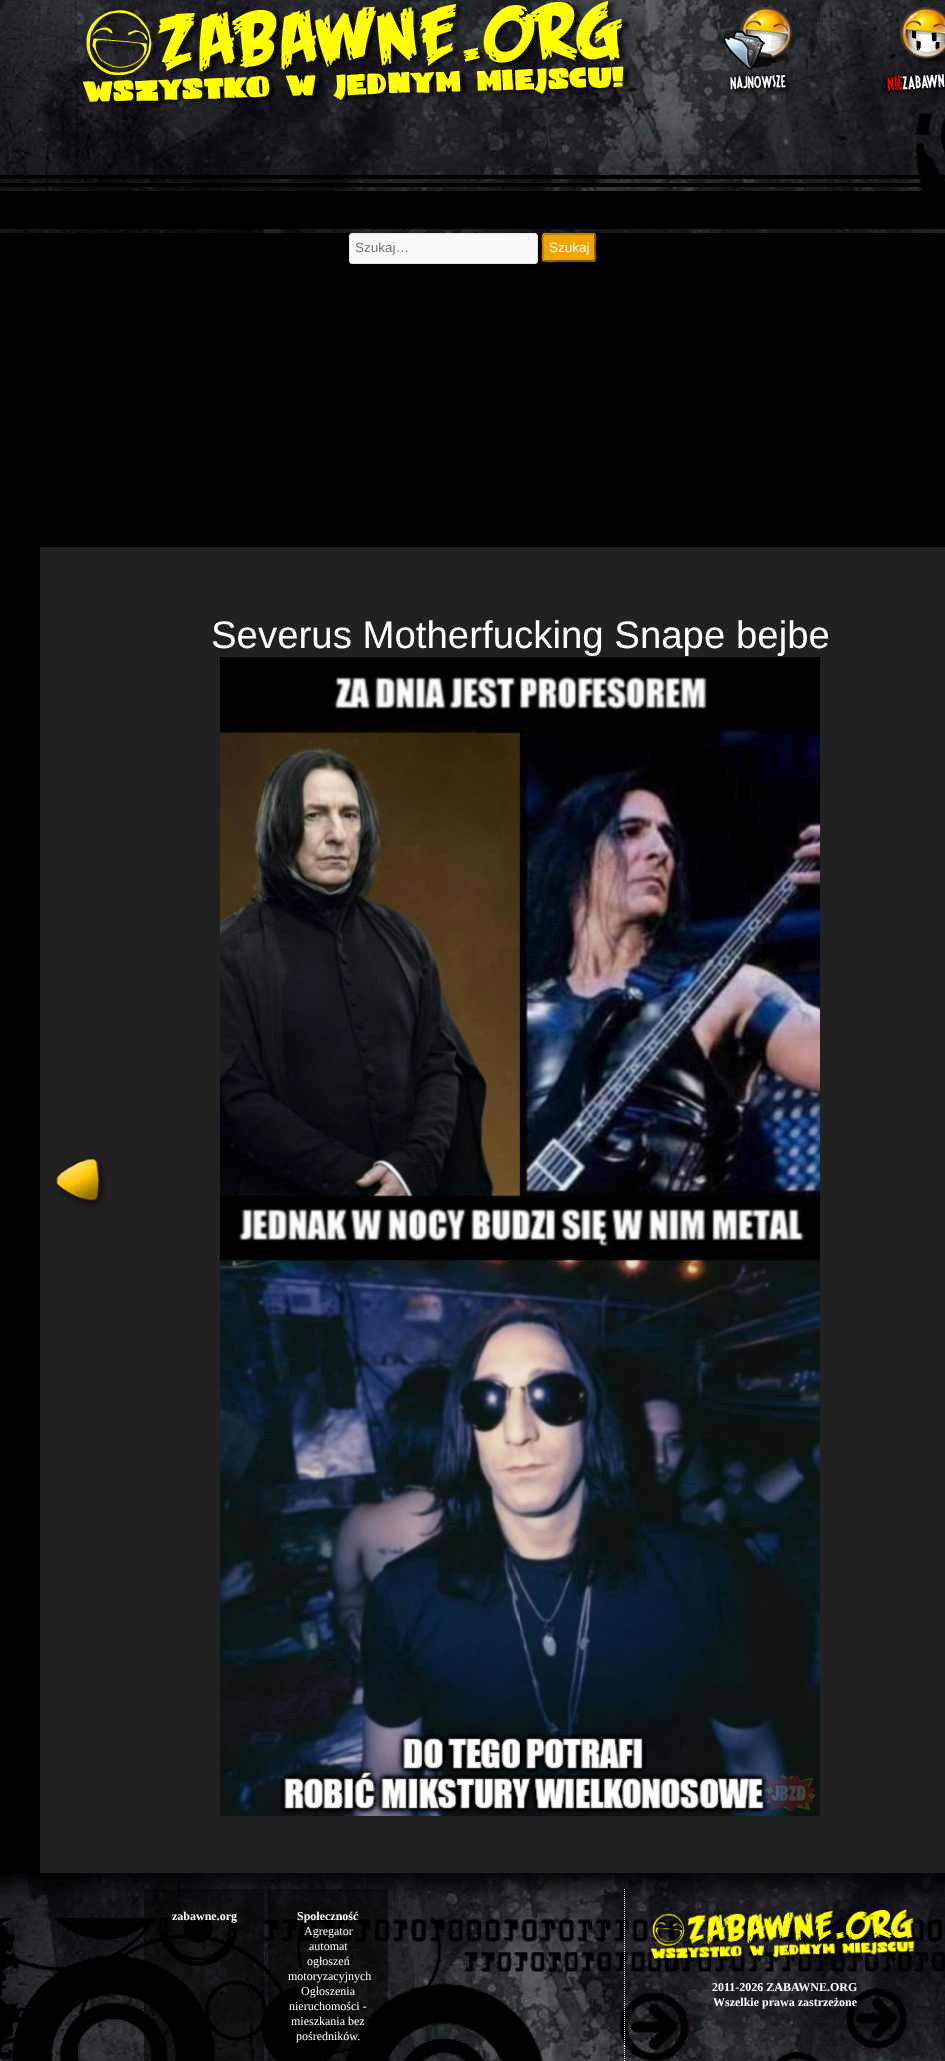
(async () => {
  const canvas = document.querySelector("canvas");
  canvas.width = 945;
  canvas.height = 2061;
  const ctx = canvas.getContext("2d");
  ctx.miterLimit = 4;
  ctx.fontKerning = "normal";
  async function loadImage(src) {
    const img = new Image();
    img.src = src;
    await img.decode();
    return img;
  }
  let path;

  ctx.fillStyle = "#000000";
  ctx.fillRect(0, 0, 945, 2061);
  ctx.fillStyle = "#f0a500";
  ctx.beginPath();
  ctx.roundRect(542, 233, 54, 29, 3);
  ctx.fill();
  path = new Path2D("M594.5 234.5C596 236.5 595 245 595 247.5C595 262 598.5 261 585 261H561C558.5 261 545.5 262 543.5 260.5");
  ctx.strokeStyle = "#7e5700";
  ctx.lineWidth = 2;
  ctx.stroke(path);
  path = new Path2D("M543.5 260.5C542 258.5 543 250 543 247.5C543 233 539.5 234 553 234H577C579.5 234 592.5 233 594.5 234.5");
  ctx.strokeStyle = "#bd8200";
  ctx.stroke(path);
  ctx.drawImage(await loadImage("img/1.png"), 0, 0, 945, 233);
  ctx.drawImage(await loadImage("img/2.png"), 83, 1, 548, 105);
  ctx.drawImage(await loadImage("img/3.png"), 723, 7, 74, 88);
  ctx.drawImage(await loadImage("img/4.png"), 882, 7, 63, 87);
  ctx.fillStyle = "#f9f9f9";
  ctx.beginPath();
  ctx.roundRect(349.5, 233.5, 188, 30, 2.5);
  ctx.fill();
  ctx.strokeStyle = "#e5e5e5";
  ctx.lineWidth = 1;
  ctx.stroke();
  ctx.fillStyle = "#212121";
  ctx.fillRect(40, 547, 905, 1326);
  ctx.drawImage(await loadImage("img/5.png"), 56, 1158, 49, 50);
  ctx.drawImage(await loadImage("img/6.png"), 220, 657, 600, 1159);
  ctx.drawImage(await loadImage("img/7.png"), 0, 1873, 945, 188);
  ctx.fillStyle = "rgba(0, 0, 0, 0.5)";
  ctx.fillRect(144, 1889, 120, 172);
  ctx.fillRect(268, 1889, 120, 172);
  ctx.drawImage(await loadImage("img/8.png"), 624, 1889, 1, 172);
  ctx.drawImage(await loadImage("img/9.png"), 651, 1909, 266, 51);
  ctx.font = "13.5px Liberation Sans";
  ctx.fillStyle = "#757575";
  ctx.fillText("Szukaj…", 355, 252);
  ctx.fillStyle = "#ffffff";
  ctx.fillText("Szukaj", 549, 252);
  ctx.font = "38.4px Liberation Sans";
  ctx.fillText("Severus Motherfucking Snape bejbe", 211, 648);
  ctx.font = "bold 12px Liberation Serif";
  ctx.fillText("zabawne.org", 172, 1920);
  ctx.fillText("Społeczność", 297, 1920);
  ctx.font = "12px Liberation Serif";
  for (const [text, x, y] of [
    ["Agregator", 304, 1935],
    ["automat", 309, 1950],
    ["ogłoszeń", 307, 1965],
    ["motoryzacyjnych", 288, 1980],
    ["Ogłoszenia", 301, 1995],
    ["nieruchomości -", 289, 2010],
    ["mieszkania bez", 291, 2025],
    ["pośredników.", 296, 2040],
  ]) {
    ctx.fillText(text, x, y);
  }
  ctx.font = "bold 12px Liberation Serif";
  ctx.fillText("2011-2026 ZABAWNE.ORG", 712, 1991);
  ctx.fillText("Wszelkie prawa zastrzeżone", 713, 2006);
})();
